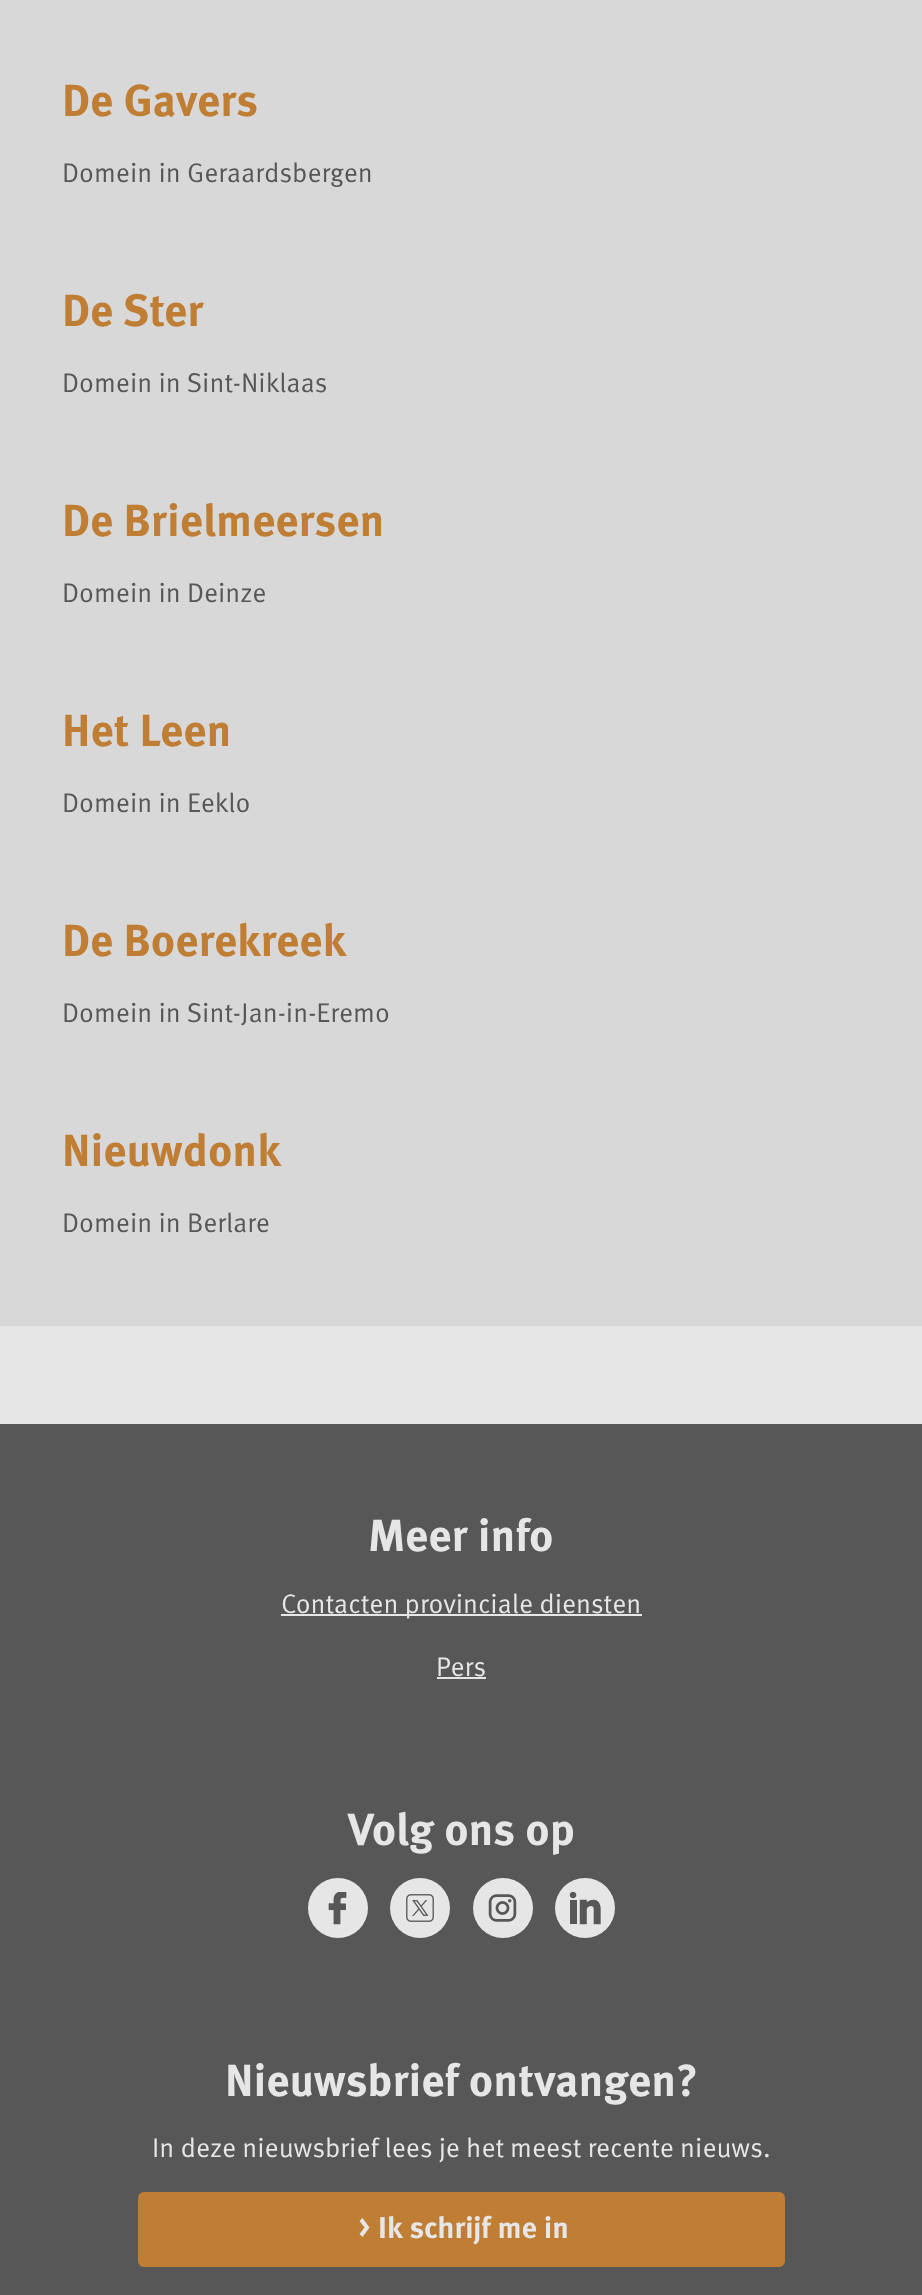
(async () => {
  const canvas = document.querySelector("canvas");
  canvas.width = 922;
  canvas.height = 2295;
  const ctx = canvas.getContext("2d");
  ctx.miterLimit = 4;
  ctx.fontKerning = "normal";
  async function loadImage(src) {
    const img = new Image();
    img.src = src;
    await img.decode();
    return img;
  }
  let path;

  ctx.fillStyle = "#e6e6e6";
  ctx.fillRect(0, 0, 922, 2295);
  for (const [x, y, w, h, color] of [
    [0, 0, 39, 1326, "#d8d8d8"],
    [39, 0, 883, 1326, "#d8d8d8"],
    [0, 1424, 922, 871, "#575757"],
    [281, 1614, 361, 2, "#e6e6e6"],
    [437, 1677, 49, 2, "#e6e6e6"],
  ]) {
    ctx.fillStyle = color;
    ctx.fillRect(x, y, w, h);
  }
  ctx.beginPath();
  ctx.arc(338, 1908, 30, 0, Math.PI * 2);
  ctx.fill();
  ctx.drawImage(await loadImage("img/1.png"), 328, 1892, 19, 33);
  ctx.beginPath();
  ctx.arc(420, 1908, 30, 0, Math.PI * 2);
  ctx.fill();
  ctx.drawImage(await loadImage("img/2.png"), 406, 1894, 28, 28);
  ctx.beginPath();
  ctx.arc(503, 1908, 30, 0, Math.PI * 2);
  ctx.fill();
  ctx.drawImage(await loadImage("img/3.png"), 488, 1894, 29, 28);
  ctx.beginPath();
  ctx.arc(585, 1908, 30, 0, Math.PI * 2);
  ctx.fill();
  ctx.drawImage(await loadImage("img/4.png"), 569, 1892, 32, 33);
  ctx.fillStyle = "#bf7e34";
  ctx.beginPath();
  ctx.roundRect(138, 2192, 647, 75, 6);
  ctx.fill();
  ctx.fillStyle = "#e6e6e6";
  path = new Path2D("M369.5 2227.5L362.5 2237L359.5 2234L364.5 2227.5L359.5 2221L362.5 2218Z");
  ctx.fill(path);
  ctx.font = "bold 45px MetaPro";
  ctx.fillStyle = "#bf7e34";
  ctx.fillText("De Gavers", 62, 116);
  ctx.font = "27px MetaPro";
  ctx.fillStyle = "#575757";
  ctx.fillText("Domein in Geraardsbergen", 62, 182);
  ctx.font = "bold 45px MetaPro";
  ctx.fillStyle = "#bf7e34";
  ctx.fillText("De Ster", 62, 326);
  ctx.font = "27px MetaPro";
  ctx.fillStyle = "#575757";
  ctx.fillText("Domein in Sint-Niklaas", 62, 392);
  ctx.font = "bold 45px MetaPro";
  ctx.fillStyle = "#bf7e34";
  ctx.fillText("De Brielmeersen", 62, 536);
  ctx.font = "27px MetaPro";
  ctx.fillStyle = "#575757";
  ctx.fillText("Domein in Deinze", 62, 602);
  ctx.font = "bold 45px MetaPro";
  ctx.fillStyle = "#bf7e34";
  ctx.fillText("Het Leen", 62, 746);
  ctx.font = "27px MetaPro";
  ctx.fillStyle = "#575757";
  ctx.fillText("Domein in Eeklo", 62, 812);
  ctx.font = "bold 45px MetaPro";
  ctx.fillStyle = "#bf7e34";
  ctx.fillText("De Boerekreek", 62, 956);
  ctx.font = "27px MetaPro";
  ctx.fillStyle = "#575757";
  ctx.fillText("Domein in Sint-Jan-in-Eremo", 62, 1022);
  ctx.font = "bold 45px MetaPro";
  ctx.fillStyle = "#bf7e34";
  ctx.fillText("Nieuwdonk", 62, 1166);
  ctx.font = "27px MetaPro";
  ctx.fillStyle = "#575757";
  ctx.fillText("Domein in Berlare", 62, 1232);
  ctx.font = "bold 45px MetaPro";
  ctx.fillStyle = "#e6e6e6";
  ctx.fillText("Meer info", 368, 1551);
  ctx.font = "27px MetaPro";
  ctx.fillText("Contacten provinciale diensten", 281, 1613);
  ctx.fillText("Pers", 436, 1676);
  ctx.font = "bold 45px MetaPro";
  ctx.fillText("Volg ons op", 348, 1845);
  ctx.fillText("Nieuwsbrief ontvangen?", 225, 2096);
  ctx.font = "27px MetaPro";
  ctx.fillText("In deze nieuwsbrief lees je het meest recente nieuws.", 152, 2157);
  ctx.font = "bold 30px MetaPro";
  ctx.fillText("Ik schrijf me in", 378, 2238);
})();
